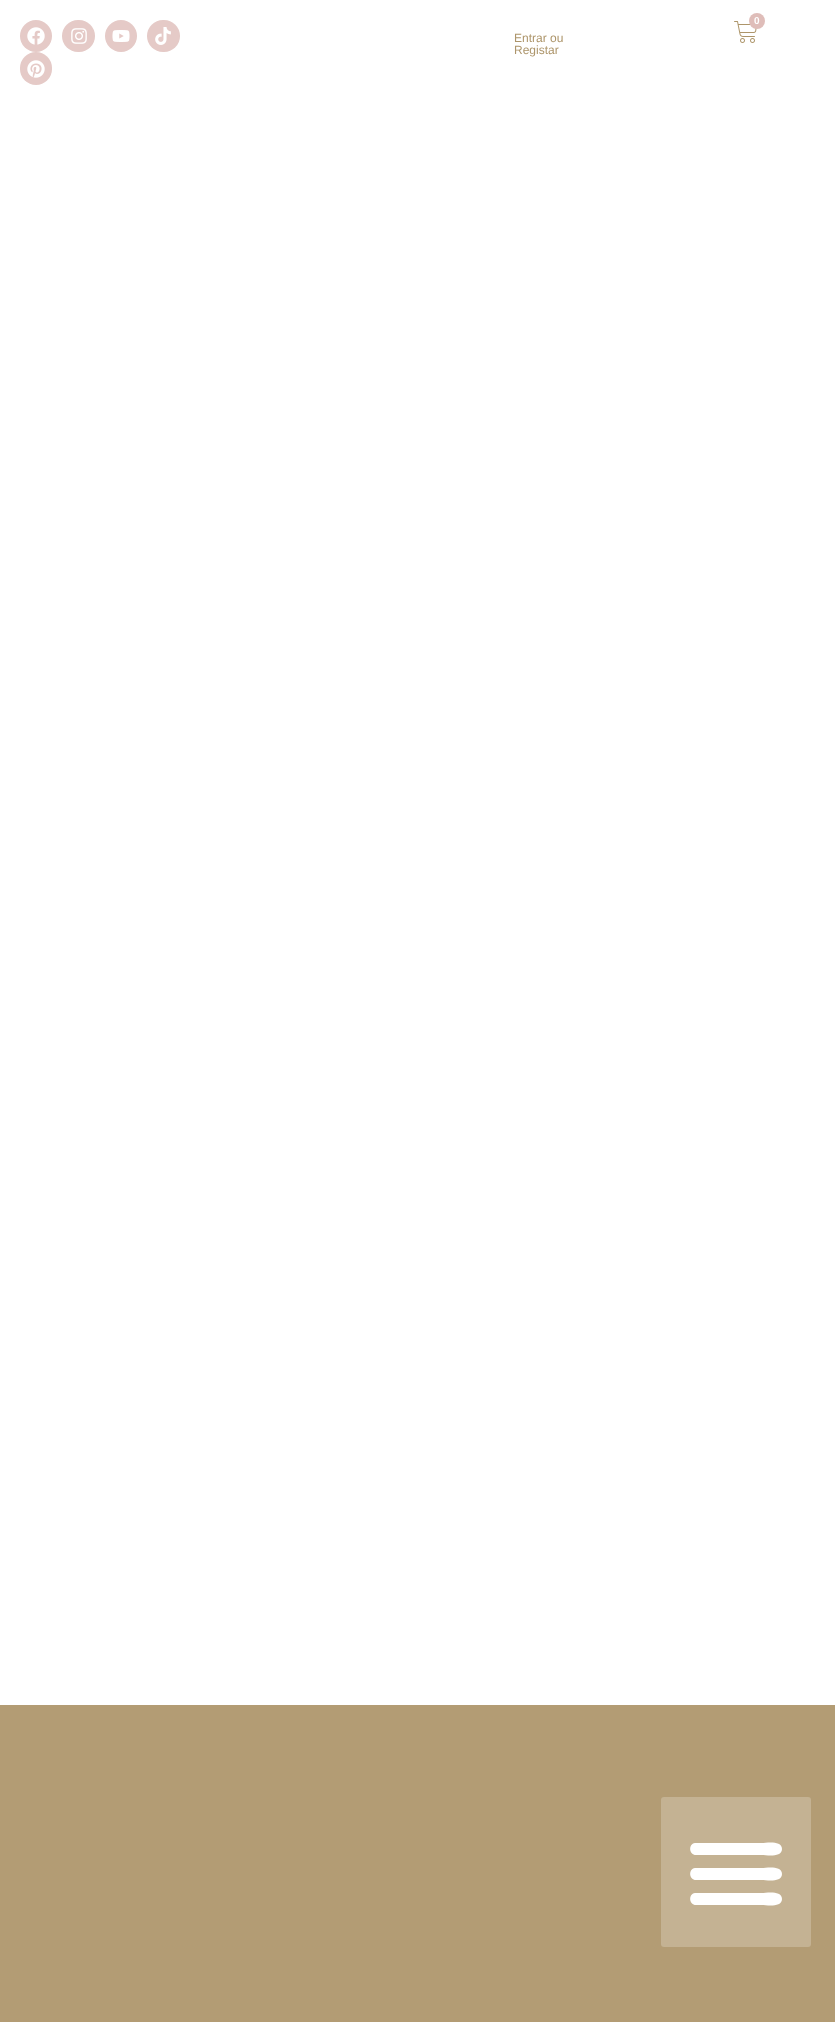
(async () => {
  const canvas = document.querySelector("canvas");
  canvas.width = 835;
  canvas.height = 2022;
  const ctx = canvas.getContext("2d");
  ctx.miterLimit = 4;
  ctx.fontKerning = "normal";
  async function loadImage(src) {
    const img = new Image();
    img.src = src;
    await img.decode();
    return img;
  }
  let path;

  ctx.fillStyle = "#ffffff";
  ctx.fillRect(0, 0, 835, 2022);
  ctx.fillStyle = "#e5cac7";
  ctx.beginPath();
  ctx.arc(36, 36, 16, 0, Math.PI * 2);
  ctx.fill();
  ctx.drawImage(await loadImage("img/1.png"), 27, 27, 18, 18);
  ctx.beginPath();
  ctx.roundRect(62, 20, 33, 32, 16);
  ctx.fill();
  ctx.drawImage(await loadImage("img/2.png"), 71, 28, 16, 16);
  ctx.beginPath();
  ctx.arc(121, 36, 16, 0, Math.PI * 2);
  ctx.fill();
  ctx.drawImage(await loadImage("img/3.png"), 112, 30, 18, 12);
  ctx.beginPath();
  ctx.roundRect(147, 20, 33, 32, 16);
  ctx.fill();
  ctx.drawImage(await loadImage("img/4.png"), 155, 27, 16, 18);
  ctx.beginPath();
  ctx.roundRect(20, 52, 32, 33, 16);
  ctx.fill();
  ctx.drawImage(await loadImage("img/5.png"), 27, 60, 18, 18);
  ctx.drawImage(await loadImage("img/6.png"), 734, 21, 23, 22);
  ctx.fillStyle = "#dfbdb9";
  ctx.beginPath();
  ctx.arc(757, 21, 8, 0, Math.PI * 2);
  ctx.fill();
  ctx.fillStyle = "#b39c74";
  ctx.fillRect(0, 1705, 835, 317);
  ctx.fillStyle = "#c4b293";
  ctx.beginPath();
  ctx.roundRect(661, 1797, 150, 150, 3);
  ctx.fill();
  ctx.fillStyle = "#ffffff";
  path = new Path2D("M696 1855H762C766 1855 782 1858 782 1849C782 1840 766 1843 762 1843H695C688 1844 689 1855 696 1855ZM696 1880H762C766 1880 782 1883 782 1874C782 1865 766 1868 762 1868H695C688 1869 689 1880 696 1880ZM696 1905H762C766 1905 782 1908 782 1899C782 1890 766 1893 762 1893H695C688 1894 689 1905 696 1905Z");
  ctx.fill(path);
  ctx.font = "12px Liberation Sans";
  ctx.fillStyle = "#ad956a";
  ctx.fillText("Entrar ou", 514, 42);
  ctx.fillText("Registar", 514, 54);
  ctx.font = "bold 10px Liberation Sans";
  ctx.fillStyle = "#ffffff";
  ctx.fillText("0", 754, 24);
})();
